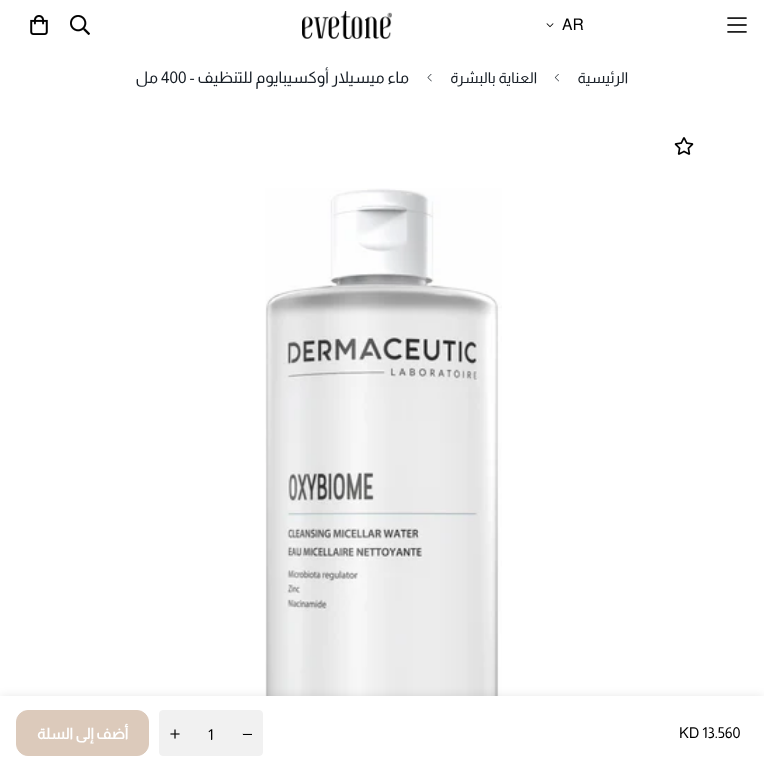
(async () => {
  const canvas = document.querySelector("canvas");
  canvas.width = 764;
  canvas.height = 770;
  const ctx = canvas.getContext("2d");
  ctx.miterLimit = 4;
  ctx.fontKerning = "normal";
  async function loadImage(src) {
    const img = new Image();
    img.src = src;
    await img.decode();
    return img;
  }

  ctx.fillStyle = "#ffffff";
  ctx.fillRect(0, 0, 764, 770);
  ctx.drawImage(await loadImage("img/1.png"), 727, 17, 20, 16);
  ctx.drawImage(await loadImage("img/2.png"), 546, 23, 8, 5);
  ctx.drawImage(await loadImage("img/3.png"), 302, 11, 90, 28);
  ctx.drawImage(await loadImage("img/4.png"), 70, 15, 20, 20);
  ctx.drawImage(await loadImage("img/5.png"), 30, 15, 18, 20);
  ctx.drawImage(await loadImage("img/6.png"), 554, 74, 5, 8);
  ctx.drawImage(await loadImage("img/7.png"), 427, 74, 5, 8);
  ctx.drawImage(await loadImage("img/8.png"), 674, 137, 20, 18);
  ctx.drawImage(await loadImage("img/9.png"), 265, 188, 237, 508);
  ctx.fillStyle = "rgba(0, 0, 0, 0.09)";
  ctx.filter = "blur(5px)";
  ctx.beginPath();
  ctx.rect(0, 696, 764, 74);
  ctx.fill();
  ctx.filter = "none";
  ctx.fillStyle = "#ffffff";
  ctx.fillRect(0, 696, 764, 74);
  ctx.fillStyle = "#f1f1f1";
  ctx.beginPath();
  ctx.roundRect(159.5, 710.5, 103, 45, 3.5);
  ctx.fill();
  ctx.strokeStyle = "#f1f1f1";
  ctx.stroke();
  ctx.drawImage(await loadImage("img/10.png"), 242, 733, 10, 2);
  ctx.drawImage(await loadImage("img/11.png"), 170, 729, 10, 10);
  ctx.fillStyle = "#dccabb";
  ctx.beginPath();
  ctx.roundRect(16.5, 710.5, 132, 45, 11.5);
  ctx.fill();
  ctx.strokeStyle = "#dccabb";
  ctx.stroke();
  ctx.font = "16px Almarai";
  ctx.fillStyle = "#000000";
  ctx.fillText("AR", 562, 30);
  ctx.direction = "rtl";
  ctx.font = "15px Almarai";
  ctx.fillStyle = "#161d25";
  ctx.fillText("الرئيسية", 628, 83);
  ctx.fillText("العناية بالبشرة", 537, 83);
  ctx.font = "16px Almarai";
  ctx.fillText("ماء ميسيلار أوكسيبايوم للتنظيف -", 409, 83);
  ctx.direction = "ltr";
  ctx.fillText("400", 161, 83);
  ctx.direction = "rtl";
  ctx.fillText("مل", 158, 83);
  ctx.direction = "ltr";
  ctx.font = "15px Almarai";
  ctx.fillStyle = "#000000";
  ctx.fillText("KD 13.560", 679, 738);
  ctx.fillText("1", 208, 740);
  ctx.direction = "rtl";
  ctx.font = "bold 15px Almarai";
  ctx.fillStyle = "#ffffff";
  ctx.fillText("أضف إلى السلة", 128, 739);
})();
